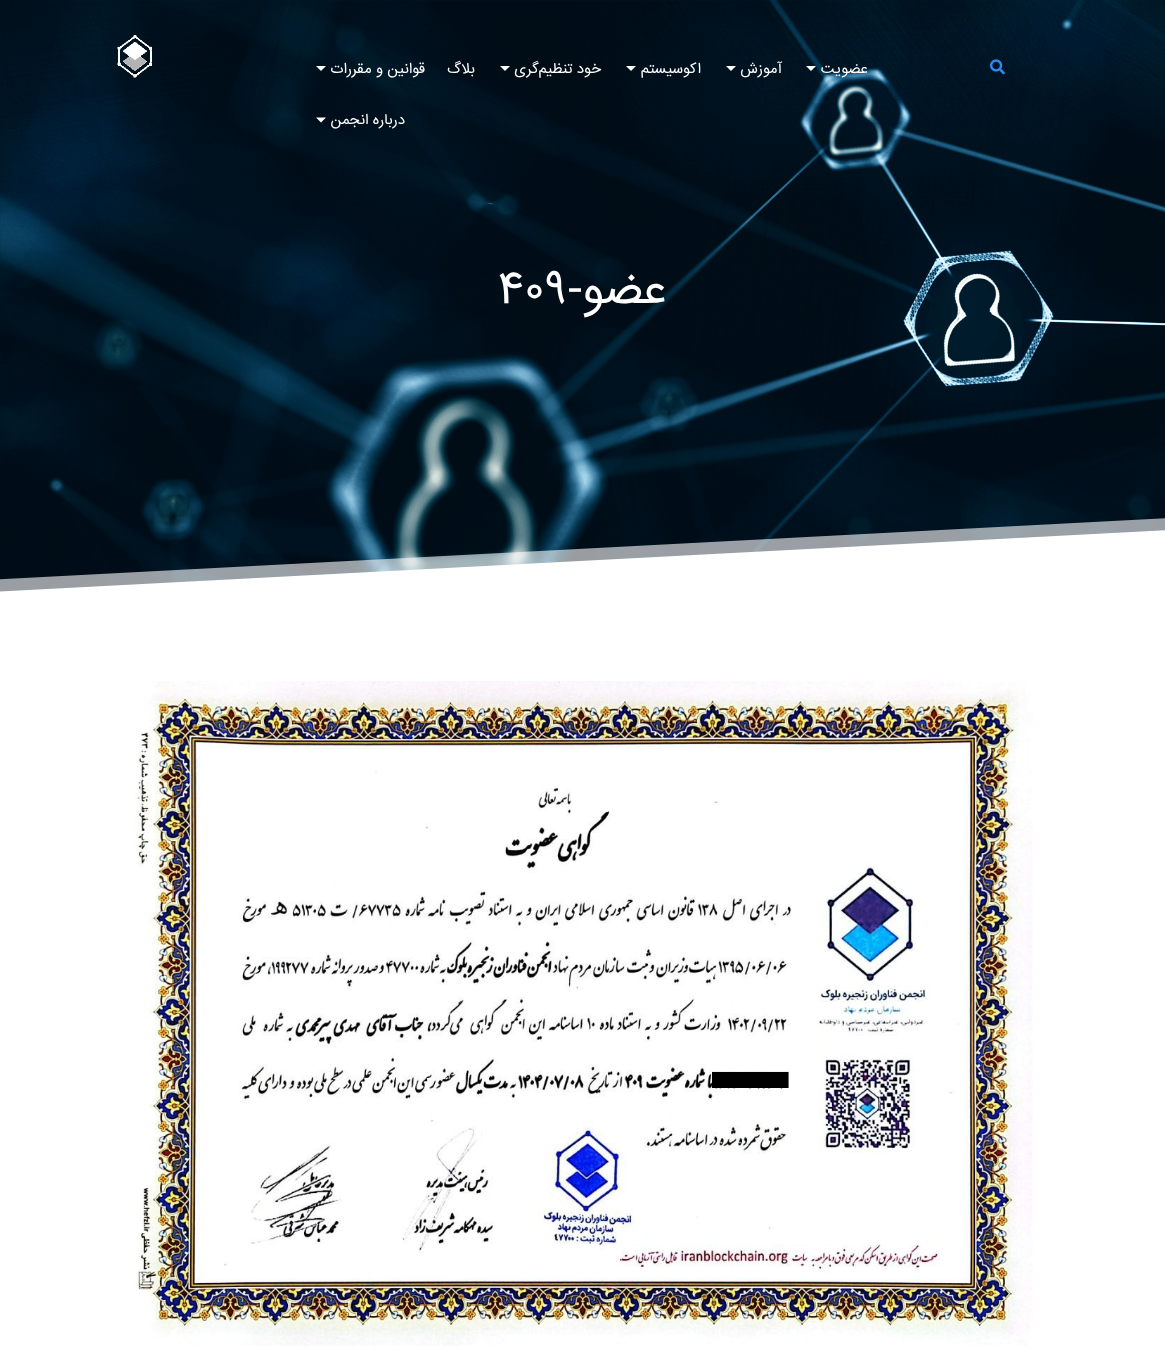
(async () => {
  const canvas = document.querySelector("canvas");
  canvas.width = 1165;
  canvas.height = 1369;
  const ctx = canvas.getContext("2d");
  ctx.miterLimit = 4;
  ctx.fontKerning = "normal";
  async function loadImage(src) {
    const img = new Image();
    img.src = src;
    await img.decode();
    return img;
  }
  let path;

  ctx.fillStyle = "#ffffff";
  ctx.fillRect(0, 0, 1165, 1369);
  ctx.drawImage(await loadImage("img/3.png"), 0, 0, 1165, 592);
  ctx.drawImage(await loadImage("img/1.png"), 990, 59, 15, 16);
  path = new Path2D("M806 66H816L811 71Z");
  ctx.fill(path);
  path = new Path2D("M726 66H736L731 71Z");
  ctx.fill(path);
  path = new Path2D("M626 66H636L631 71Z");
  ctx.fill(path);
  path = new Path2D("M500 66H510L505 71Z");
  ctx.fill(path);
  path = new Path2D("M316 66H326L321 71Z");
  ctx.fill(path);
  path = new Path2D("M316 117.5H326L321 122.5Z");
  ctx.fill(path);
  ctx.drawImage(await loadImage("img/2.png"), 117, 35, 35, 43);
  ctx.save();
  ctx.beginPath();
  ctx.rect(0, 0, 1165, 594);
  ctx.clip();
  ctx.fillStyle = "rgba(255, 255, 255, 0.6)";
  path = new Path2D("M-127 586L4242 357L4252 542L-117 771Z");
  ctx.fill(path);
  ctx.fillStyle = "#ffffff";
  path = new Path2D("M-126 598L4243 369L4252 554L-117 783Z");
  ctx.fill(path);
  ctx.restore();
  ctx.drawImage(await loadImage("img/4.png"), 133, 681, 900, 665);
  ctx.direction = "rtl";
  ctx.font = "15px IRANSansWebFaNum";
  for (const [text, x, y] of [
    ["عضویت", 868, 73],
    ["آموزش", 782, 73],
    ["اکوسیستم", 701, 73],
    ["خود تنظیم‌گری", 601, 73],
    ["بلاگ", 475, 73],
    ["قوانین و مقررات", 425, 73],
    ["درباره انجمن", 405, 124],
  ]) {
    ctx.fillText(text, x, y);
  }
  ctx.font = "47.5px IRANSansWebFaNum";
  ctx.fillText("عضو-", 667, 303);
  ctx.direction = "ltr";
  ctx.fillText("۴۰۹", 498, 303);
})();
